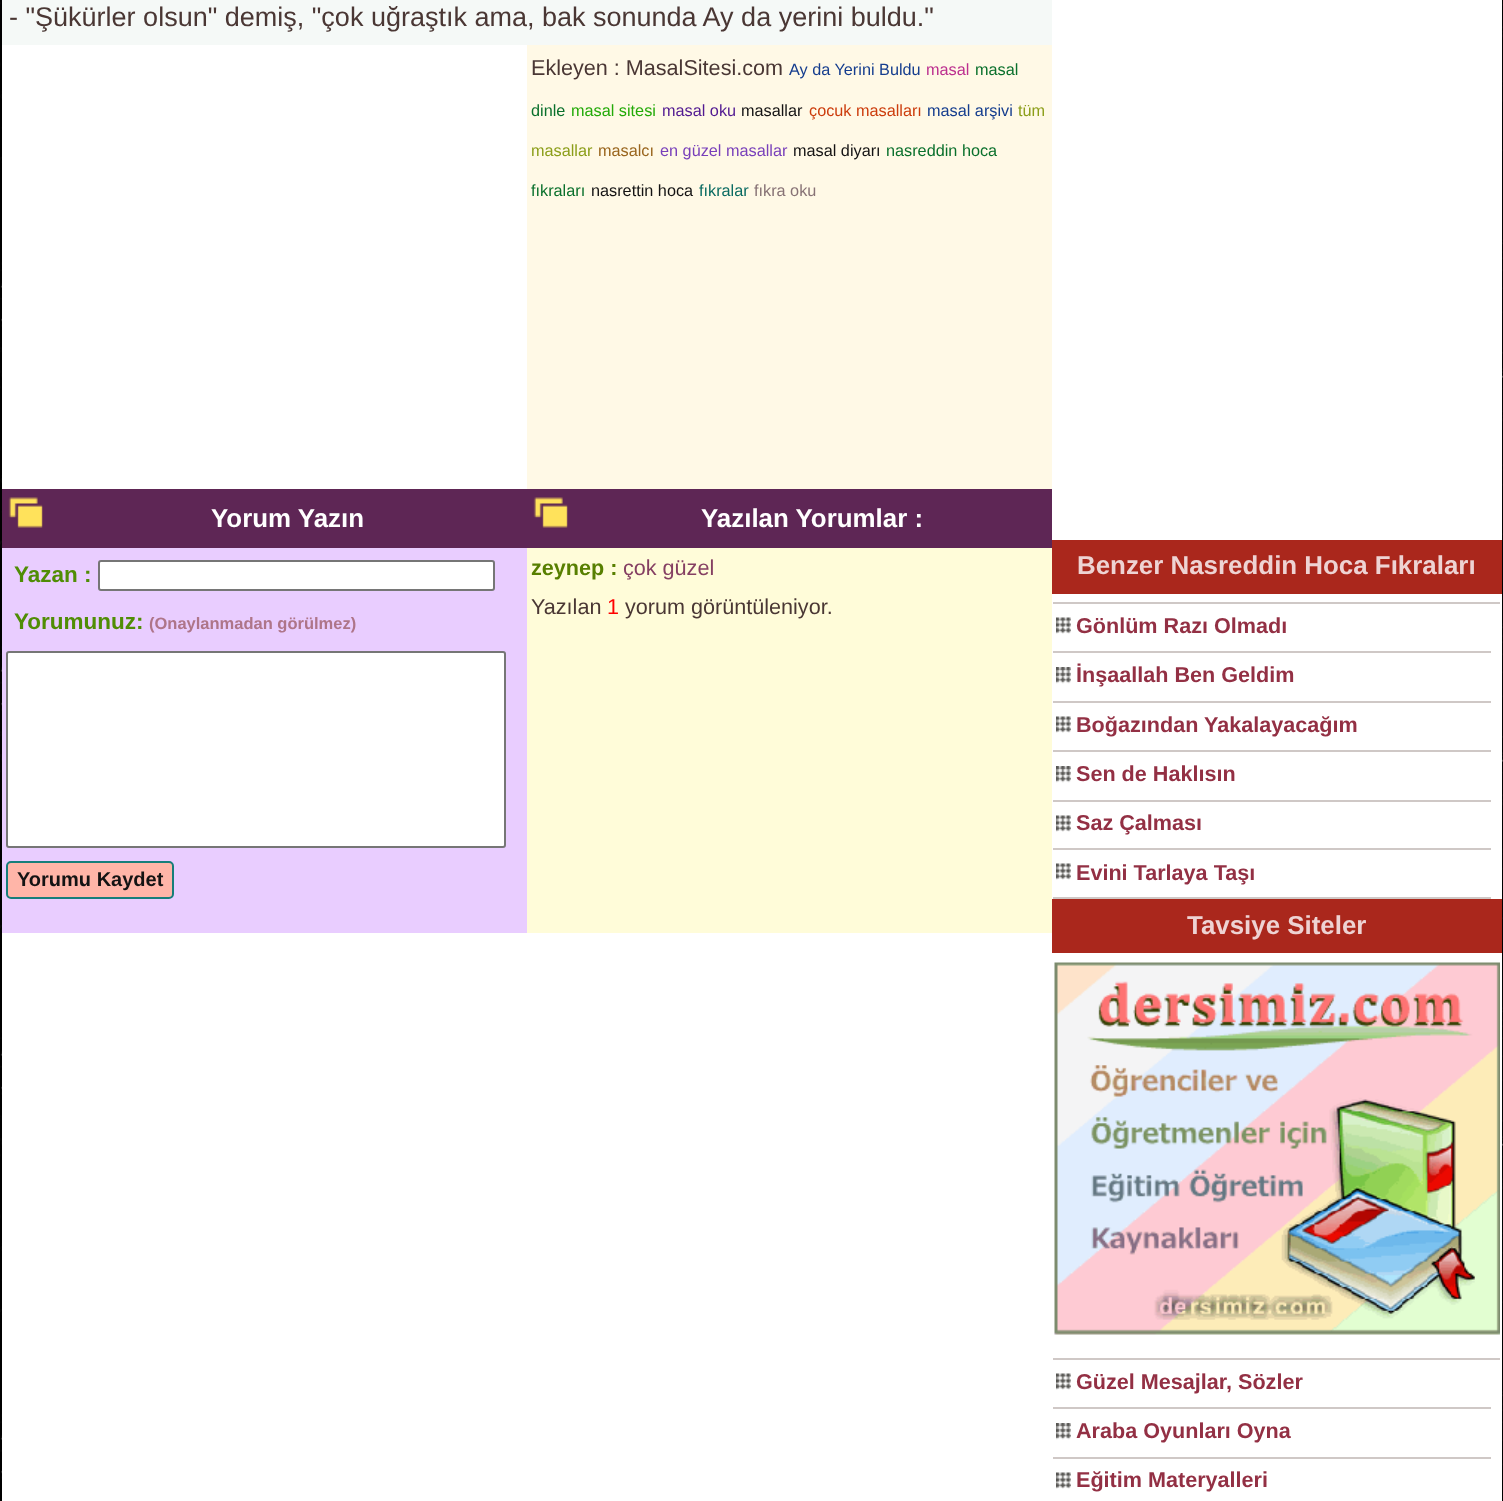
(async () => {
  const canvas = document.querySelector("canvas");
  canvas.width = 1503;
  canvas.height = 1501;
  const ctx = canvas.getContext("2d");
  ctx.miterLimit = 4;
  ctx.fontKerning = "normal";
  async function loadImage(src) {
    const img = new Image();
    img.src = src;
    await img.decode();
    return img;
  }

  ctx.fillStyle = "#ffffff";
  ctx.fillRect(0, 0, 1503, 1501);
  ctx.drawImage(await loadImage("img/1.png"), 0, 0, 1503, 1501);
  for (const [x, y, w, h, color] of [
    [2, 0, 1500, 1501, "#ffffff"],
    [2, 0, 1050, 45, "#f5f9f7"],
    [527, 45, 525, 444, "#fff9e6"],
    [2, 548, 525, 385, "#e9cdff"],
    [2, 489, 1050, 59, "#5e2655"],
  ]) {
    ctx.fillStyle = color;
    ctx.fillRect(x, y, w, h);
  }
  ctx.drawImage(await loadImage("img/2.png"), 8, 497, 35, 31);
  ctx.fillStyle = "#ffffff";
  ctx.beginPath();
  ctx.roundRect(99, 561, 395, 29, 2);
  ctx.fill();
  ctx.strokeStyle = "#767676";
  ctx.lineWidth = 2;
  ctx.stroke();
  ctx.beginPath();
  ctx.roundRect(7, 652, 498, 195, 2);
  ctx.fill();
  ctx.stroke();
  ctx.fillStyle = "#ffb5a8";
  ctx.beginPath();
  ctx.roundRect(7, 862, 166, 36, 4);
  ctx.fill();
  ctx.strokeStyle = "#167e7a";
  ctx.stroke();
  ctx.fillStyle = "#fffcd9";
  ctx.fillRect(527, 548, 525, 385);
  ctx.drawImage(await loadImage("img/3.png"), 533, 497, 35, 31);
  ctx.fillStyle = "#aa271c";
  ctx.fillRect(1052, 540, 450, 54);
  ctx.fillStyle = "#cfc8c6";
  ctx.fillRect(1053, 602, 447, 2);
  ctx.drawImage(await loadImage("img/4.png"), 1056, 617, 15, 17);
  ctx.fillRect(1053, 651, 438, 2);
  ctx.drawImage(await loadImage("img/5.png"), 1056, 667, 15, 17);
  ctx.fillRect(1053, 701, 438, 2);
  ctx.drawImage(await loadImage("img/4.png"), 1056, 716, 15, 17);
  ctx.fillRect(1053, 750, 438, 2);
  ctx.drawImage(await loadImage("img/5.png"), 1056, 766, 15, 17);
  ctx.fillRect(1053, 800, 438, 2);
  ctx.drawImage(await loadImage("img/4.png"), 1056, 815, 15, 17);
  ctx.fillRect(1053, 848, 438, 2);
  ctx.drawImage(await loadImage("img/4.png"), 1056, 863, 15, 17);
  ctx.fillRect(1053, 897, 438, 2);
  ctx.fillStyle = "#aa271c";
  ctx.fillRect(1052, 899, 450, 54);
  ctx.drawImage(await loadImage("img/6.png"), 1054, 962, 446, 373);
  ctx.fillStyle = "#cfc8c6";
  ctx.fillRect(1053, 1358, 447, 2);
  ctx.drawImage(await loadImage("img/4.png"), 1056, 1373, 15, 17);
  ctx.fillRect(1053, 1407, 438, 2);
  ctx.drawImage(await loadImage("img/5.png"), 1056, 1423, 15, 17);
  ctx.fillRect(1053, 1457, 438, 2);
  ctx.drawImage(await loadImage("img/4.png"), 1056, 1472, 15, 17);
  ctx.font = "27px Liberation Sans";
  ctx.fillStyle = "#4a3734";
  ctx.fillText("- \"Şükürler olsun\" demiş, \"çok uğraştık ama, bak sonunda Ay da yerini buldu.\"", 9, 26);
  ctx.font = "21.6px Liberation Sans";
  ctx.fillText("Ekleyen : MasalSitesi.com", 531, 75);
  ctx.font = "16.25px Liberation Sans";
  ctx.fillStyle = "#153d8e";
  ctx.fillText("Ay da Yerini Buldu", 789, 75);
  ctx.fillStyle = "#bc2f8f";
  ctx.fillText("masal", 926, 75);
  ctx.fillStyle = "#0a702c";
  ctx.fillText("masal", 975, 75);
  ctx.fillText("dinle", 531, 116);
  ctx.fillStyle = "#23aa08";
  ctx.fillText("masal sitesi", 571, 116);
  ctx.fillStyle = "#511991";
  ctx.fillText("masal oku", 662, 116);
  ctx.fillStyle = "#141313";
  ctx.fillText("masallar", 741, 116);
  ctx.fillStyle = "#cc3c0c";
  ctx.fillText("çocuk masalları", 809, 116);
  ctx.fillStyle = "#153d8e";
  ctx.fillText("masal arşivi", 927, 116);
  ctx.fillStyle = "#8c9e19";
  ctx.fillText("tüm", 1018, 116);
  ctx.fillText("masallar", 531, 156);
  ctx.fillStyle = "#99651d";
  ctx.fillText("masalcı", 598, 156);
  ctx.fillStyle = "#783fba";
  ctx.fillText("en güzel masallar", 660, 156);
  ctx.fillStyle = "#141313";
  ctx.fillText("masal diyarı", 793, 156);
  ctx.fillStyle = "#0a702c";
  ctx.fillText("nasreddin hoca", 886, 156);
  ctx.fillText("fıkraları", 531, 196);
  ctx.fillStyle = "#141313";
  ctx.fillText("nasrettin hoca", 591, 196);
  ctx.fillStyle = "#0a6b62";
  ctx.fillText("fıkralar", 699, 196);
  ctx.fillStyle = "#877275";
  ctx.fillText("fıkra oku", 754, 196);
  ctx.font = "bold 25.9px Liberation Sans";
  ctx.fillStyle = "#ffffff";
  ctx.fillText("Yorum Yazın", 211, 527);
  ctx.font = "bold 22.5px Liberation Sans";
  ctx.fillStyle = "#508d05";
  ctx.fillText("Yazan :", 14, 582);
  ctx.fillText("Yorumunuz:", 14, 629);
  ctx.font = "bold 16.5px Liberation Sans";
  ctx.fillStyle = "#ae7589";
  ctx.fillText("(Onaylanmadan görülmez)", 149, 629);
  ctx.font = "bold 20px Liberation Sans";
  ctx.fillStyle = "#141313";
  ctx.fillText("Yorumu Kaydet", 17, 886);
  ctx.font = "bold 25.9px Liberation Sans";
  ctx.fillStyle = "#ffffff";
  ctx.fillText("Yazılan Yorumlar :", 701, 527);
  ctx.font = "bold 21.6px Liberation Sans";
  ctx.fillStyle = "#587f00";
  ctx.fillText("zeynep :", 531, 575);
  ctx.font = "21.6px Liberation Sans";
  ctx.fillStyle = "#853f62";
  ctx.fillText("çok güzel", 623, 575);
  ctx.fillStyle = "#4a3734";
  ctx.fillText("Yazılan", 531, 614);
  ctx.fillStyle = "#ff0000";
  ctx.fillText("1", 607, 614);
  ctx.fillStyle = "#4a3734";
  ctx.fillText("yorum görüntüleniyor.", 625, 614);
  ctx.font = "bold 25.9px Liberation Sans";
  ctx.fillStyle = "#eed3d3";
  ctx.fillText("Benzer Nasreddin Hoca Fıkraları", 1077, 574);
  ctx.font = "bold 21.6px Liberation Sans";
  ctx.fillStyle = "#933044";
  for (const [text, x, y] of [
    ["Gönlüm Razı Olmadı", 1076, 633],
    ["İnşaallah Ben Geldim", 1076, 682],
    ["Boğazından Yakalayacağım", 1076, 732],
    ["Sen de Haklısın", 1076, 781],
    ["Saz Çalması", 1076, 830],
    ["Evini Tarlaya Taşı", 1076, 880],
  ]) {
    ctx.fillText(text, x, y);
  }
  ctx.font = "bold 25.9px Liberation Sans";
  ctx.fillStyle = "#eed3d3";
  ctx.fillText("Tavsiye Siteler", 1187, 934);
  ctx.font = "bold 21.6px Liberation Sans";
  ctx.fillStyle = "#933044";
  for (const [text, x, y] of [
    ["Güzel Mesajlar, Sözler", 1076, 1389],
    ["Araba Oyunları Oyna", 1076, 1438],
    ["Eğitim Materyalleri", 1076, 1487],
  ]) {
    ctx.fillText(text, x, y);
  }
})();
